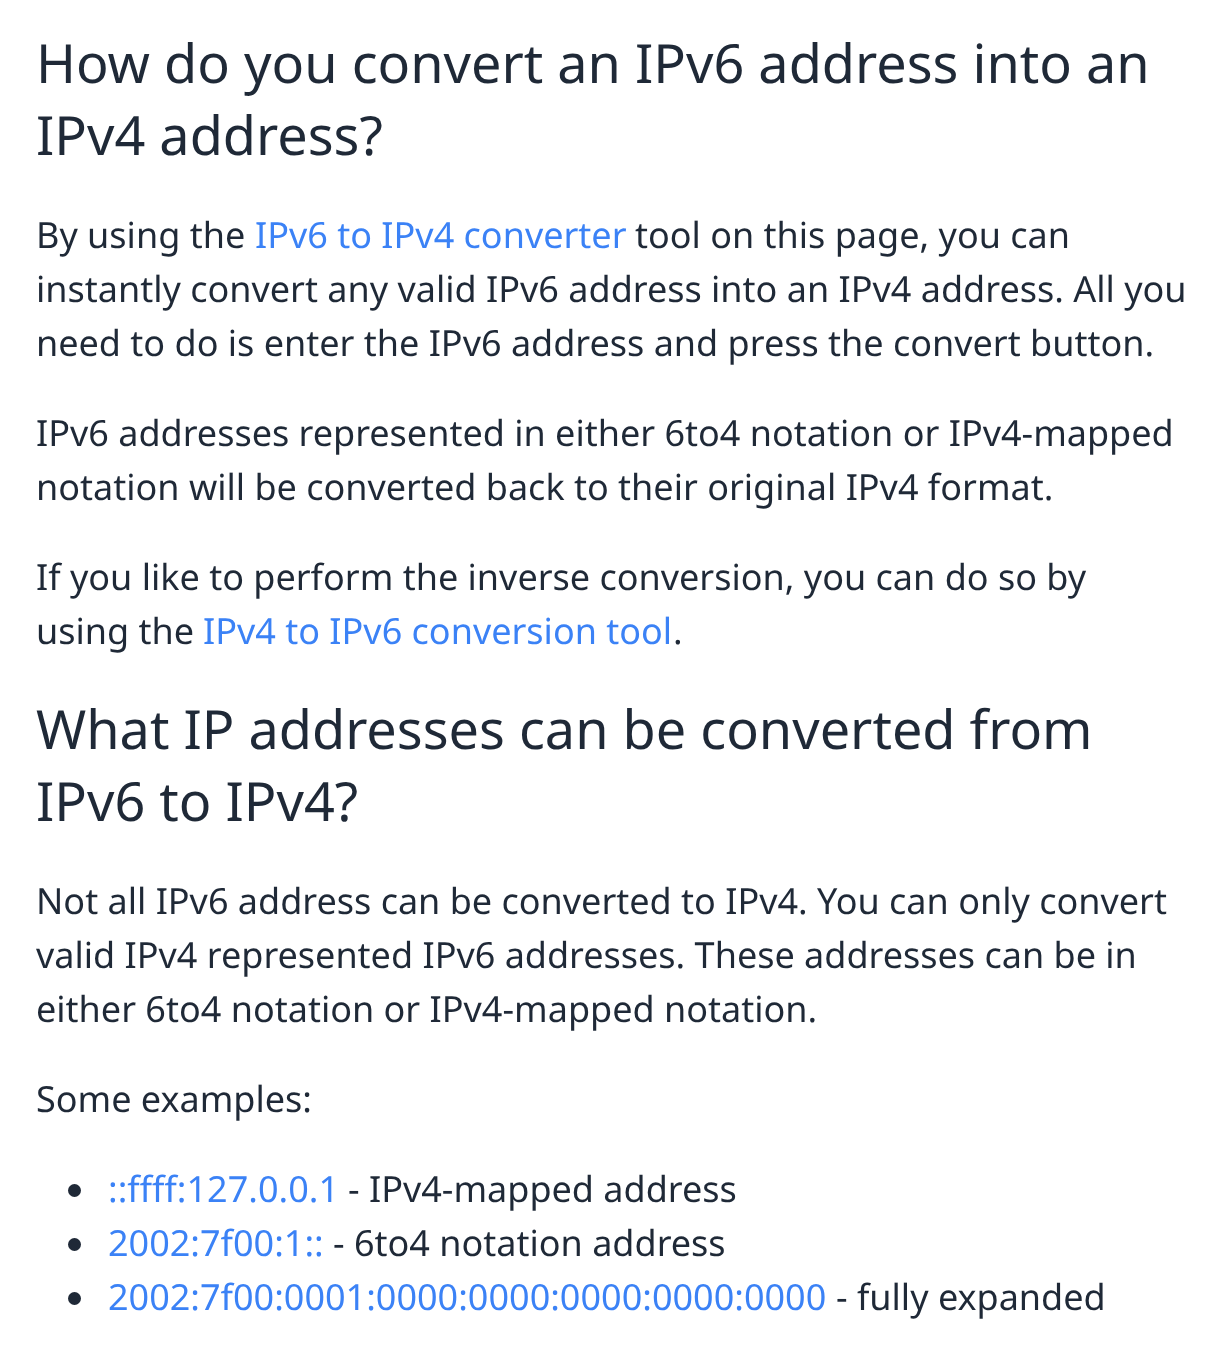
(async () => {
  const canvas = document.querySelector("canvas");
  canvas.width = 1223;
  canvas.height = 1356;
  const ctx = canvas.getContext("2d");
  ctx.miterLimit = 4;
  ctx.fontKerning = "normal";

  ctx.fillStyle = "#ffffff";
  ctx.fillRect(0, 0, 1223, 1356);
  ctx.fillStyle = "#1f2937";
  ctx.beginPath();
  ctx.arc(74.5, 1190.5, 6.5, 0, Math.PI * 2);
  ctx.fill();
  ctx.beginPath();
  ctx.arc(74.5, 1244.5, 6.5, 0, Math.PI * 2);
  ctx.fill();
  ctx.beginPath();
  ctx.arc(74.5, 1298.5, 6.5, 0, Math.PI * 2);
  ctx.fill();
  ctx.font = "54px Noto Sans";
  ctx.fillText("How do you convert an IPv6 address into an", 36, 83);
  ctx.fillText("IPv4 address?", 36, 155);
  ctx.font = "36px Noto Sans";
  ctx.fillText("By using the", 36, 248);
  ctx.fillStyle = "#3b82f6";
  ctx.fillText("IPv6 to IPv4 converter", 255, 248);
  ctx.fillStyle = "#1f2937";
  for (const [text, x, y] of [
    ["tool on this page, you can", 635, 248],
    ["instantly convert any valid IPv6 address into an IPv4 address. All you", 36, 302],
    ["need to do is enter the IPv6 address and press the convert button.", 36, 356],
    ["IPv6 addresses represented in either 6to4 notation or IPv4-mapped", 36, 446],
    ["notation will be converted back to their original IPv4 format.", 36, 500],
    ["If you like to perform the inverse conversion, you can do so by", 36, 590],
    ["using the", 36, 644],
  ]) {
    ctx.fillText(text, x, y);
  }
  ctx.fillStyle = "#3b82f6";
  ctx.fillText("IPv4 to IPv6 conversion tool", 203, 644);
  ctx.fillStyle = "#1f2937";
  ctx.fillText(".", 673, 644);
  ctx.font = "54px Noto Sans";
  ctx.fillText("What IP addresses can be converted from", 36, 749);
  ctx.fillText("IPv6 to IPv4?", 36, 821);
  ctx.font = "36px Noto Sans";
  for (const [text, x, y] of [
    ["Not all IPv6 address can be converted to IPv4. You can only convert", 36, 914],
    ["valid IPv4 represented IPv6 addresses. These addresses can be in", 36, 968],
    ["either 6to4 notation or IPv4-mapped notation.", 36, 1022],
    ["Some examples:", 36, 1112],
  ]) {
    ctx.fillText(text, x, y);
  }
  ctx.fillStyle = "#3b82f6";
  ctx.fillText("::ffff:127.0.0.1", 108, 1202);
  ctx.fillStyle = "#1f2937";
  ctx.fillText("- IPv4-mapped address", 348, 1202);
  ctx.fillStyle = "#3b82f6";
  ctx.fillText("2002:7f00:1::", 108, 1256);
  ctx.fillStyle = "#1f2937";
  ctx.fillText("- 6to4 notation address", 333, 1256);
  ctx.fillStyle = "#3b82f6";
  ctx.fillText("2002:7f00:0001:0000:0000:0000:0000:0000", 108, 1310);
  ctx.fillStyle = "#1f2937";
  ctx.fillText("- fully expanded", 836, 1310);
})();
